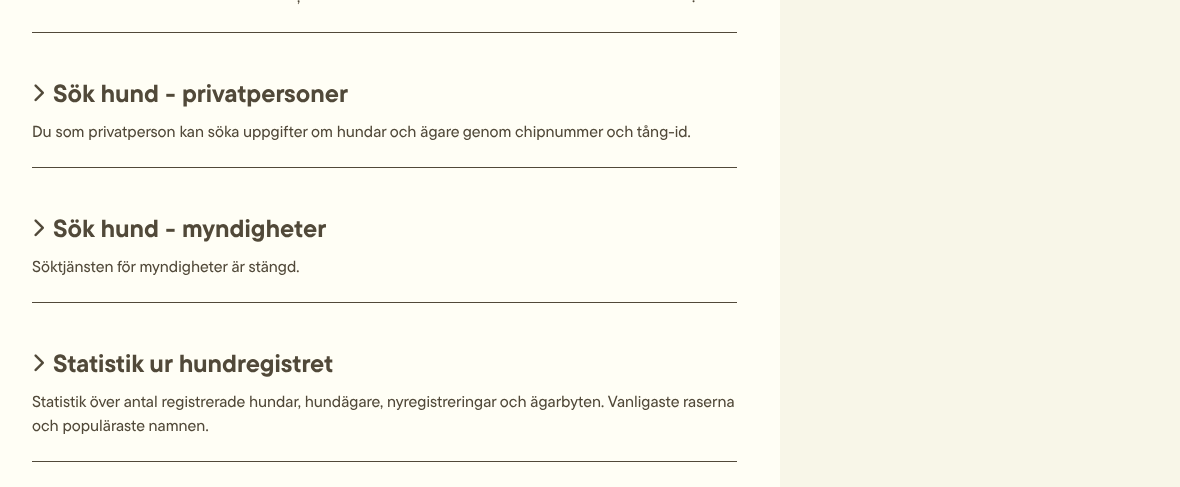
(async () => {
  const canvas = document.querySelector("canvas");
  canvas.width = 1180;
  canvas.height = 487;
  const ctx = canvas.getContext("2d");
  ctx.miterLimit = 4;
  ctx.fontKerning = "normal";
  async function loadImage(src) {
    const img = new Image();
    img.src = src;
    await img.decode();
    return img;
  }

  ctx.fillStyle = "#fffef5";
  ctx.fillRect(0, 0, 1180, 487);
  ctx.fillStyle = "#514939";
  ctx.fillRect(32, 32, 705, 1);
  ctx.fillRect(32, 167, 705, 1);
  ctx.drawImage(await loadImage("img/1.png"), 34, 84, 10, 18);
  ctx.fillRect(32, 302, 705, 1);
  ctx.drawImage(await loadImage("img/1.png"), 34, 219, 10, 18);
  ctx.fillRect(32, 461, 705, 1);
  ctx.drawImage(await loadImage("img/1.png"), 34, 354, 10, 18);
  ctx.fillStyle = "#f8f6e8";
  ctx.fillRect(780, 0, 400, 487);
  ctx.font = "500 16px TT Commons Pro";
  ctx.fillStyle = "#514939";
  ctx.fillText(",", 297, 2);
  ctx.fillText(".", 692, 2);
  ctx.font = "bold 24.75px TT Commons Pro";
  ctx.fillText("Sök hund - privatpersoner", 53, 102);
  ctx.font = "500 16px TT Commons Pro";
  ctx.fillText("Du som privatperson kan söka uppgifter om hundar och ägare genom chipnummer och tång-id.", 32, 137);
  ctx.font = "bold 24.75px TT Commons Pro";
  ctx.fillText("Sök hund - myndigheter", 53, 237);
  ctx.font = "500 16px TT Commons Pro";
  ctx.fillText("Söktjänsten för myndigheter är stängd.", 32, 272);
  ctx.font = "bold 24.75px TT Commons Pro";
  ctx.fillText("Statistik ur hundregistret", 53, 372);
  ctx.font = "500 16px TT Commons Pro";
  ctx.fillText("Statistik över antal registrerade hundar, hundägare, nyregistreringar och ägarbyten. Vanligaste raserna", 32, 407);
  ctx.fillText("och populäraste namnen.", 32, 431);
})();
